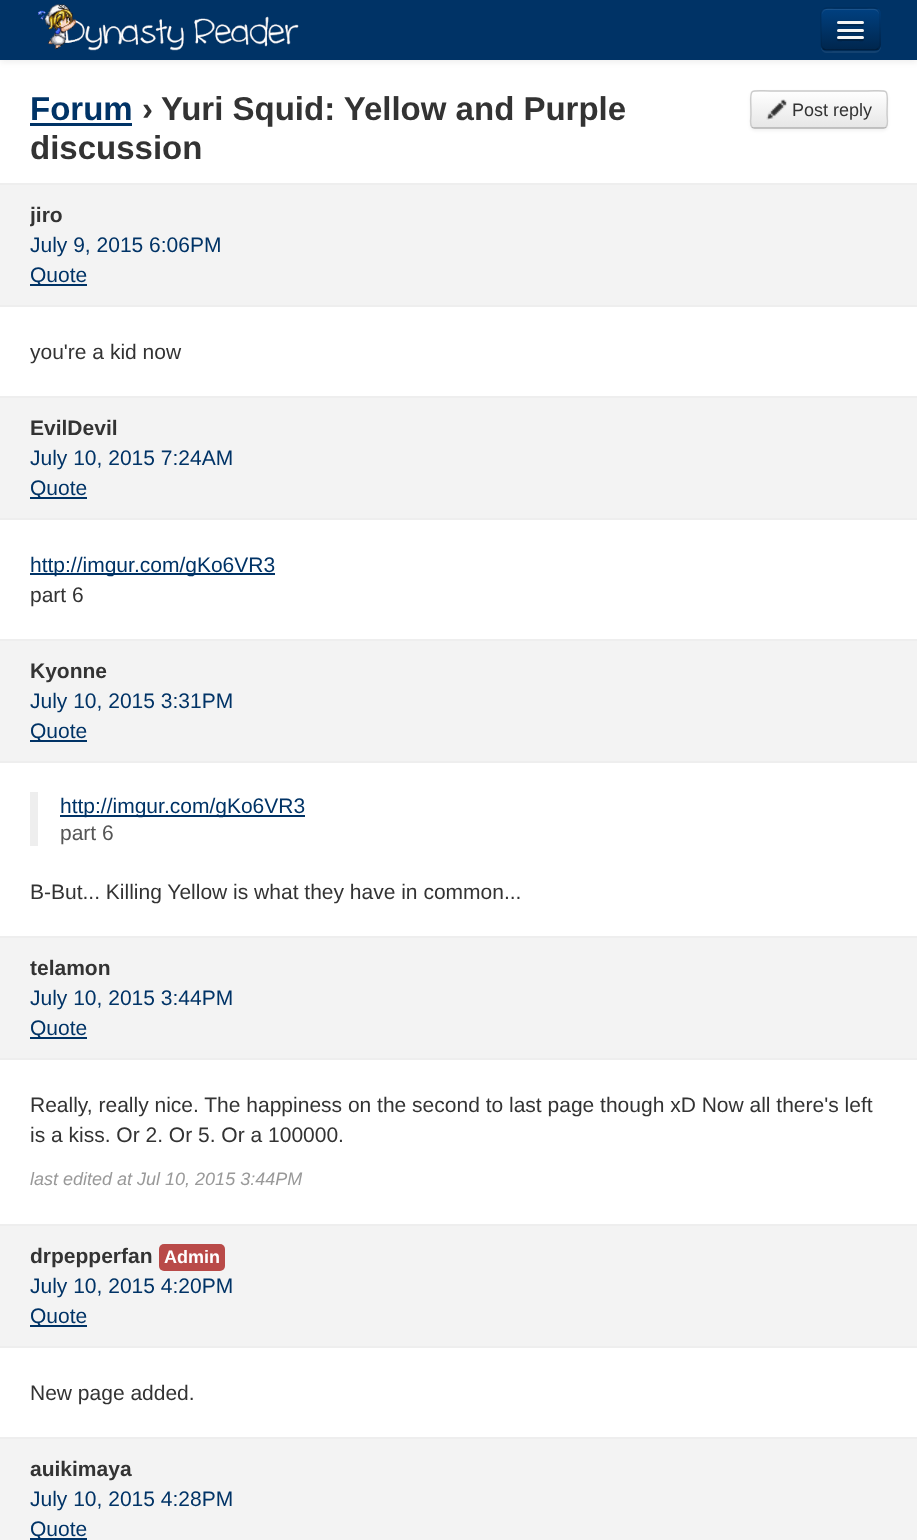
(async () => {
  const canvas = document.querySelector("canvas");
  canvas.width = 917;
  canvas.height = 1540;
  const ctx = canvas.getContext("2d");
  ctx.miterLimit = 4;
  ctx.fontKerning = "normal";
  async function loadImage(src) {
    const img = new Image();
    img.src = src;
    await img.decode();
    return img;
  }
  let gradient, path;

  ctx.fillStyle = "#ffffff";
  ctx.fillRect(0, 0, 917, 1540);
  ctx.fillStyle = "rgba(0, 0, 0, 0.07)";
  ctx.filter = "blur(3px)";
  ctx.beginPath();
  ctx.rect(0, 2, 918, 60);
  ctx.fill();
  ctx.filter = "none";
  ctx.fillStyle = "#003366";
  ctx.fillRect(0, 0, 917, 60);
  ctx.drawImage(await loadImage("img/1.png"), 38, 4, 261, 47);
  ctx.fillStyle = "#134271";
  path = new Path2D("M821 47C821 51 824 53 827 53H875C878 53 881 50 881 47V15L880 12V46L879 48C879 50 877 51 876 51H834C830 51 823 53 821 47Z");
  ctx.fill(path);
  ctx.fillStyle = "#00366b";
  ctx.beginPath();
  ctx.roundRect(821, 8, 60, 43, 6);
  ctx.fill();
  ctx.save();
  ctx.beginPath();
  ctx.roundRect(821, 8, 60, 43, 6);
  ctx.clip();
  gradient = ctx.createLinearGradient(851, 9, 851, 50);
  gradient.addColorStop(0, "#004080");
  gradient.addColorStop(1, "#00264d");
  ctx.fillStyle = gradient;
  ctx.fillRect(821, 9, 60, 41);
  ctx.restore();
  ctx.fillStyle = "rgba(255, 255, 255, 0.1)";
  path = new Path2D("M826 10H874C877 10 879 13 879 15C879 7 872 9 866 9H835C829 9 822 7 822 15C822 13 824 10 826 10Z");
  ctx.fill(path);
  path = new Path2D("M878 48.5C877 49.5 876 50 874.5 50H826.5C825 50 824 49.5 823 48.5");
  ctx.strokeStyle = "rgba(0, 0, 0, 0.25)";
  ctx.lineWidth = 1.5;
  ctx.stroke(path);
  path = new Path2D("M823 48.5C822 47.5 821 46.5 821 45V13.5C821 12 822 11 823 10C824 9 825 8 826.5 8H874.5C876 8 877 9 878 10C879 11 880 12 880 13.5V45C880 46.5 879 47.5 878 48.5");
  ctx.strokeStyle = "rgba(0, 0, 0, 0.1)";
  ctx.stroke(path);
  ctx.fillStyle = "#002951";
  path = new Path2D("M837.5 23.5L837 25C837.5 27 842 26 842.5 26H858.5C859 26 863.5 27 864 25L863.5 23.5L862.5 24H838.5Z");
  ctx.fill(path);
  ctx.fillStyle = "#f5f5f5";
  ctx.beginPath();
  ctx.roundRect(837, 21, 27, 3, 1.5);
  ctx.fill();
  ctx.fillStyle = "#00254a";
  path = new Path2D("M837 30.5C835.5 34 842.5 33 842.5 33H858.5C858.5 33 865.5 34 864 30.5C863.5 31 863 31.5 862.5 31.5H838.5C838 31.5 837.5 31 837 30.5Z");
  ctx.fill(path);
  ctx.fillStyle = "#f5f5f5";
  ctx.beginPath();
  ctx.roundRect(837, 29, 27, 3, 1.5);
  ctx.fill();
  ctx.fillStyle = "#002143";
  path = new Path2D("M837.5 38.5L837 40C837.5 42 842 41 842.5 41H858.5C859 41 863.5 42 864 40L863.5 38.5L862.5 39H838.5Z");
  ctx.fill(path);
  ctx.fillStyle = "#f5f5f5";
  ctx.beginPath();
  ctx.roundRect(837, 36, 27, 3, 1.5);
  ctx.fill();
  ctx.fillStyle = "#003366";
  ctx.fillRect(30, 123, 102, 3);
  ctx.fillStyle = "rgba(0, 0, 0, 0.05)";
  ctx.filter = "blur(1.5px)";
  ctx.beginPath();
  ctx.roundRect(750, 92, 138, 39, 5);
  ctx.fill();
  ctx.filter = "none";
  ctx.fillStyle = "#f5f5f5";
  ctx.beginPath();
  ctx.roundRect(750, 90, 138, 39, 5);
  ctx.fill();
  ctx.save();
  ctx.beginPath();
  ctx.roundRect(750, 90, 138, 39, 5);
  ctx.clip();
  gradient = ctx.createLinearGradient(819, 91, 819, 128);
  gradient.addColorStop(0, "#ffffff");
  gradient.addColorStop(1, "#e6e6e6");
  ctx.fillStyle = gradient;
  ctx.fillRect(750, 92, 138, 36);
  ctx.restore();
  ctx.fillStyle = "rgba(255, 255, 255, 0.2)";
  path = new Path2D("M754 93H884C888 93 886 105 886 106V127C887 127 887 126 887 125V95C887 93 886 92 884 92H755C753 92 752 93 752 95V96C752 94 753 93 754 93Z");
  ctx.fill(path);
  path = new Path2D("M886 127C885.5 128 884.5 128 883.5 128H754.5C753.5 128 752.5 128 752 127");
  ctx.strokeStyle = "#b3b3b3";
  ctx.stroke(path);
  path = new Path2D("M752 127C749.5 124.5 751 117 751 114.5C751 85.5 745.5 91 776 91H862C892.5 91 887 85.5 887 114.5C887 117 888.5 124.5 886 127");
  ctx.strokeStyle = "#cccccc";
  ctx.stroke(path);
  ctx.drawImage(await loadImage("img/2.png"), 766, 99, 21, 21);
  for (const [x, y, w, h, color] of [
    [0, 185, 917, 120, "#f3f3f3"],
    [0, 183, 917, 2, "#eeeeee"],
    [0, 305, 917, 2, "#eeeeee"],
    [30, 284, 57, 2, "#003366"],
    [0, 398, 917, 120, "#f3f3f3"],
    [0, 396, 917, 2, "#eeeeee"],
    [0, 518, 917, 2, "#eeeeee"],
    [30, 497, 57, 2, "#003366"],
    [30, 573, 245, 2, "#003366"],
    [0, 641, 917, 120, "#f3f3f3"],
    [0, 639, 917, 2, "#eeeeee"],
    [0, 761, 917, 2, "#eeeeee"],
    [30, 740, 57, 2, "#003366"],
    [30, 792, 8, 54, "#eeeeee"],
    [60, 815, 245, 2, "#003366"],
    [0, 938, 917, 120, "#f3f3f3"],
    [0, 936, 917, 2, "#eeeeee"],
    [0, 1058, 917, 2, "#eeeeee"],
    [30, 1037, 57, 2, "#003366"],
    [0, 1226, 917, 120, "#f3f3f3"],
    [0, 1224, 917, 2, "#eeeeee"],
    [0, 1346, 917, 2, "#eeeeee"],
  ]) {
    ctx.fillStyle = color;
    ctx.fillRect(x, y, w, h);
  }
  ctx.fillStyle = "#b94a48";
  ctx.beginPath();
  ctx.roundRect(159, 1244, 66, 27, 5);
  ctx.fill();
  for (const [x, y, w, h, color] of [
    [30, 1325, 57, 2, "#003366"],
    [0, 1439, 917, 101, "#f3f3f3"],
    [0, 1437, 917, 2, "#eeeeee"],
    [30, 1538, 57, 2, "#003366"],
  ]) {
    ctx.fillStyle = color;
    ctx.fillRect(x, y, w, h);
  }
  ctx.font = "bold 33px Liberation Sans";
  ctx.fillText("Forum", 30, 120);
  ctx.fillStyle = "#333333";
  for (const [text, x, y] of [
    ["›", 142, 120],
    ["Yuri Squid: Yellow and Purple", 161, 120],
    ["discussion", 30, 159],
  ]) {
    ctx.fillText(text, x, y);
  }
  ctx.font = "18px Liberation Sans";
  ctx.fillText("Post reply", 792, 116);
  ctx.save();
  ctx.beginPath();
  ctx.rect(30, 200, 858, 30);
  ctx.clip();
  ctx.font = "bold 21px Liberation Sans";
  ctx.fillText("jiro", 30, 222);
  ctx.restore();
  ctx.font = "21px Liberation Sans";
  ctx.fillStyle = "#003366";
  ctx.fillText("July 9, 2015 6:06PM", 30, 252);
  ctx.fillText("Quote", 30, 282);
  ctx.fillStyle = "#333333";
  ctx.fillText("you're a kid now", 30, 359);
  ctx.font = "bold 21px Liberation Sans";
  ctx.fillText("EvilDevil", 30, 435);
  ctx.font = "21px Liberation Sans";
  ctx.fillStyle = "#003366";
  for (const [text, x, y] of [
    ["July 10, 2015 7:24AM", 30, 465],
    ["Quote", 30, 495],
    ["http://imgur.com/gKo6VR3", 30, 572],
  ]) {
    ctx.fillText(text, x, y);
  }
  ctx.fillStyle = "#333333";
  ctx.fillText("part 6", 30, 602);
  ctx.font = "bold 21px Liberation Sans";
  ctx.fillText("Kyonne", 30, 678);
  ctx.font = "21px Liberation Sans";
  ctx.fillStyle = "#003366";
  for (const [text, x, y] of [
    ["July 10, 2015 3:31PM", 30, 708],
    ["Quote", 30, 738],
    ["http://imgur.com/gKo6VR3", 60, 813],
  ]) {
    ctx.fillText(text, x, y);
  }
  ctx.fillStyle = "#555555";
  ctx.fillText("part 6", 60, 840);
  ctx.fillStyle = "#333333";
  ctx.fillText("B-But... Killing Yellow is what they have in common...", 30, 899);
  ctx.font = "bold 21px Liberation Sans";
  ctx.fillText("telamon", 30, 975);
  ctx.font = "21px Liberation Sans";
  ctx.fillStyle = "#003366";
  ctx.fillText("July 10, 2015 3:44PM", 30, 1005);
  ctx.fillText("Quote", 30, 1035);
  ctx.fillStyle = "#333333";
  ctx.fillText("Really, really nice. The happiness on the second to last page though xD Now all there's left", 30, 1112);
  ctx.fillText("is a kiss. Or 2. Or 5. Or a 100000.", 30, 1142);
  ctx.font = "italic 18px Liberation Sans";
  ctx.fillStyle = "#999999";
  ctx.fillText("last edited at Jul 10, 2015 3:44PM", 30, 1185);
  ctx.font = "bold 21px Liberation Sans";
  ctx.fillStyle = "#333333";
  ctx.fillText("drpepperfan", 30, 1263);
  ctx.font = "bold 18px Liberation Sans";
  ctx.fillStyle = "#ffffff";
  ctx.fillText("Admin", 164, 1263);
  ctx.font = "21px Liberation Sans";
  ctx.fillStyle = "#003366";
  ctx.fillText("July 10, 2015 4:20PM", 30, 1293);
  ctx.fillText("Quote", 30, 1323);
  ctx.fillStyle = "#333333";
  ctx.fillText("New page added.", 30, 1400);
  ctx.font = "bold 21px Liberation Sans";
  ctx.fillText("auikimaya", 30, 1476);
  ctx.font = "21px Liberation Sans";
  ctx.fillStyle = "#003366";
  ctx.fillText("July 10, 2015 4:28PM", 30, 1506);
  ctx.fillText("Quote", 30, 1536);
})();
